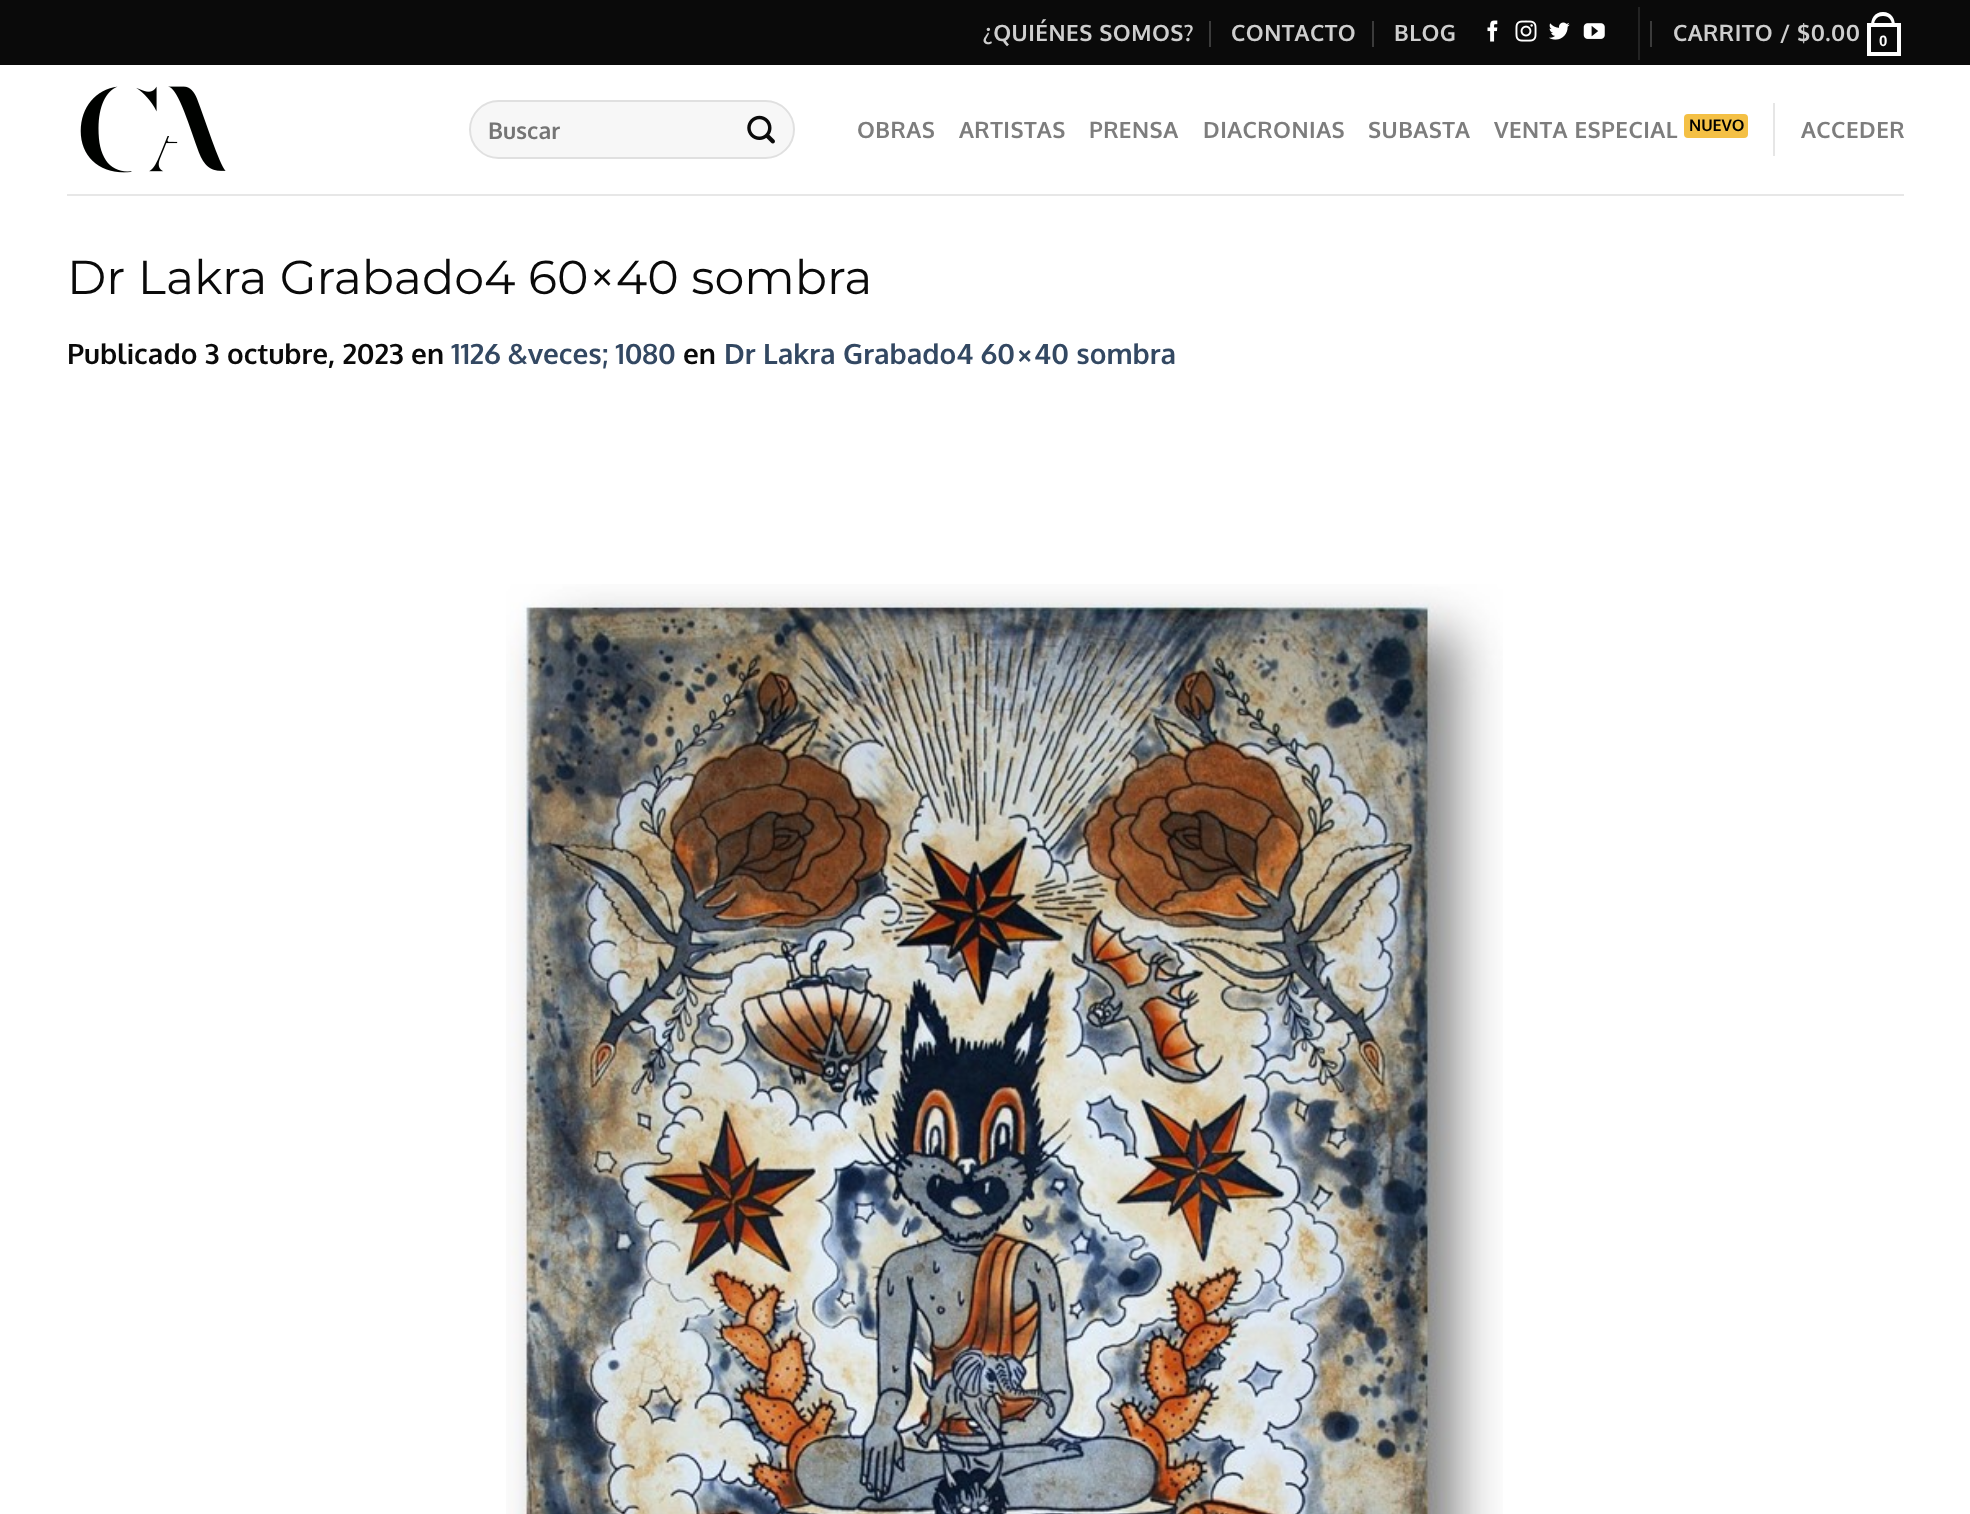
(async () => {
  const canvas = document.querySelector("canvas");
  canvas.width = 1970;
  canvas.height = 1514;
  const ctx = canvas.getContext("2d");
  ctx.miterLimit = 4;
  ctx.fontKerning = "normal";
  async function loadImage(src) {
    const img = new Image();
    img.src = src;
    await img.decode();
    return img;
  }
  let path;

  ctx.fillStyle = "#ffffff";
  ctx.fillRect(0, 0, 1970, 1514);
  for (const [x, y, w, h, color] of [
    [0, 0, 1970, 65, "#0a0a0a"],
    [1209, 21, 2, 26, "#3b3b3b"],
    [1372, 21, 2, 26, "#3b3b3b"],
  ]) {
    ctx.fillStyle = color;
    ctx.fillRect(x, y, w, h);
  }
  ctx.drawImage(await loadImage("img/1.png"), 1487, 20, 11, 22);
  ctx.drawImage(await loadImage("img/2.png"), 1515, 20, 22, 22);
  ctx.drawImage(await loadImage("img/3.png"), 1549, 22, 21, 18);
  ctx.drawImage(await loadImage("img/4.png"), 1583, 23, 22, 16);
  ctx.fillStyle = "#232323";
  ctx.fillRect(1638, 7, 2, 53);
  ctx.fillStyle = "#3b3b3b";
  ctx.fillRect(1650, 21, 2, 26);
  ctx.strokeStyle = "#ffffff";
  ctx.lineWidth = 4;
  ctx.strokeRect(1869, 25, 30, 29);
  ctx.fillStyle = "#ffffff";
  path = new Path2D("M1883 12C1891.5 12 1895 18.5 1895 26H1871C1871 18.5 1874.5 12 1883 12ZM1883 16C1889.5 16 1892 20.5 1892 26H1874C1874 20.5 1876.5 16 1883 16Z");
  ctx.fill(path, "evenodd");
  ctx.drawImage(await loadImage("img/5.png"), 80, 86, 146, 87);
  ctx.fillStyle = "#f7f7f7";
  ctx.beginPath();
  ctx.roundRect(469, 100, 326, 59, 29.5);
  ctx.fill();
  ctx.beginPath();
  ctx.roundRect(470, 101, 324, 57, 28.5);
  ctx.strokeStyle = "rgba(0, 0, 0, 0.09)";
  ctx.lineWidth = 2;
  ctx.stroke();
  ctx.drawImage(await loadImage("img/6.png"), 747, 115, 28, 29);
  ctx.fillStyle = "#f4c045";
  ctx.beginPath();
  ctx.roundRect(1684, 114, 64, 24, 4);
  ctx.fill();
  ctx.fillStyle = "#e6e6e6";
  ctx.fillRect(1773, 103, 2, 53);
  ctx.fillStyle = "#e7e7e7";
  ctx.fillRect(67, 194, 1837, 2);
  ctx.drawImage(await loadImage("img/7.png"), 506, 584, 997, 930);
  ctx.letterSpacing = "0.5px";
  ctx.font = "bold 22.5px Oxygen";
  ctx.fillStyle = "#cecece";
  for (const [text, x, y] of [
    ["¿QUIÉNES SOMOS?", 983, 41],
    ["CONTACTO", 1231, 41],
    ["BLOG", 1394, 41],
    ["CARRITO / $0.00", 1673, 41],
  ]) {
    ctx.fillText(text, x, y);
  }
  ctx.font = "bold 15px Liberation Sans";
  ctx.fillStyle = "#ffffff";
  ctx.fillText("0", 1879, 46);
  ctx.letterSpacing = "0px";
  ctx.font = "bold 23px Oxygen";
  ctx.fillStyle = "#757575";
  ctx.fillText("Buscar", 488, 139);
  ctx.letterSpacing = "0.5px";
  ctx.font = "bold 22.5px Oxygen";
  ctx.fillStyle = "#7d7d7d";
  for (const [text, x, y] of [
    ["OBRAS", 857, 138],
    ["ARTISTAS", 959, 138],
    ["PRENSA", 1089, 138],
    ["DIACRONIAS", 1203, 138],
    ["SUBASTA", 1368, 138],
    ["VENTA ESPECIAL", 1494, 138],
  ]) {
    ctx.fillText(text, x, y);
  }
  ctx.letterSpacing = "0px";
  ctx.font = "bold 16px Oxygen";
  ctx.fillStyle = "#000000";
  ctx.fillText("NUEVO", 1689, 131);
  ctx.letterSpacing = "0.5px";
  ctx.font = "bold 22.5px Oxygen";
  ctx.fillStyle = "#7d7d7d";
  ctx.fillText("ACCEDER", 1801, 138);
  ctx.letterSpacing = "0px";
  ctx.font = "47.6px Montserrat";
  ctx.fillStyle = "#0a0a0a";
  ctx.fillText("Dr Lakra Grabado4 60×40 sombra", 67, 294);
  ctx.font = "bold 28px Oxygen";
  ctx.fillText("Publicado 3 octubre, 2023 en", 67, 364);
  ctx.fillStyle = "#334862";
  ctx.fillText("1126 &veces; 1080", 451, 364);
  ctx.fillStyle = "#0a0a0a";
  ctx.fillText("en", 683, 364);
  ctx.fillStyle = "#334862";
  ctx.fillText("Dr Lakra Grabado4 60×40 sombra", 724, 364);
})();
